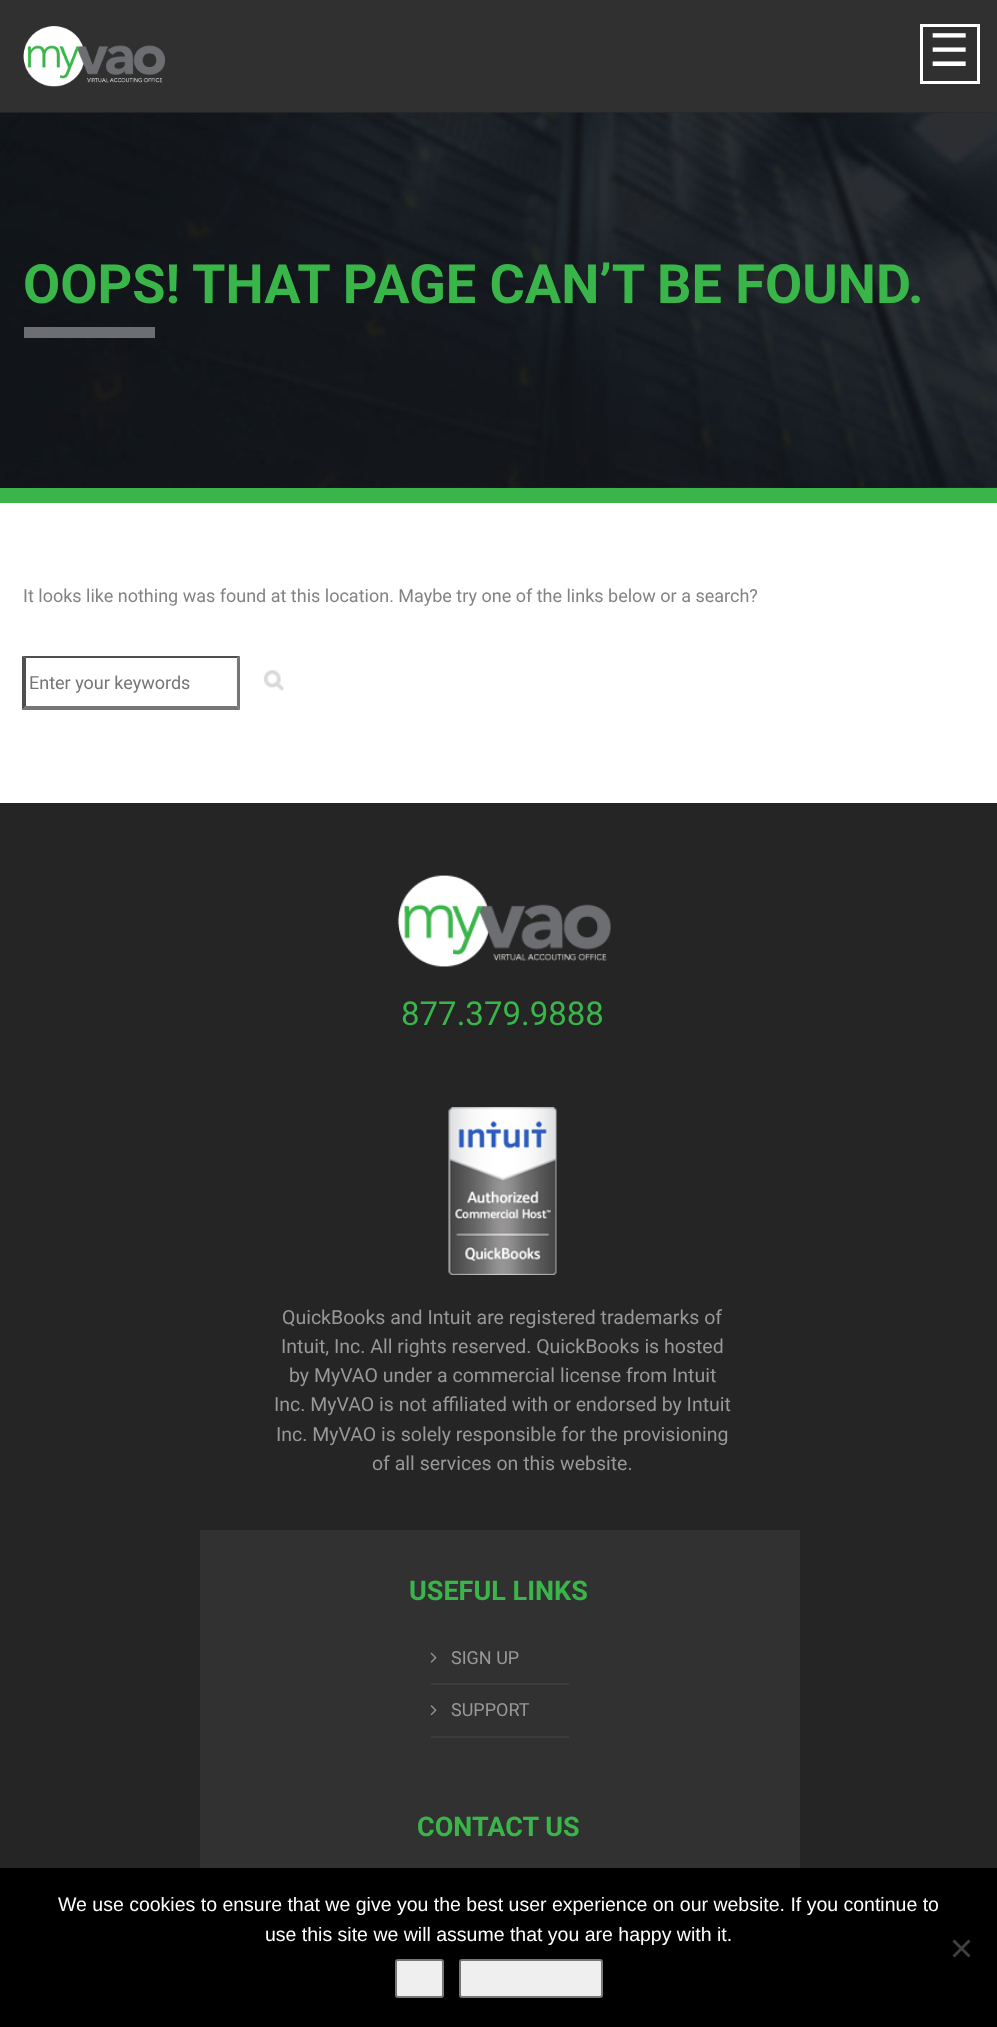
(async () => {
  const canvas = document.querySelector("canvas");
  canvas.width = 997;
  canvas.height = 2027;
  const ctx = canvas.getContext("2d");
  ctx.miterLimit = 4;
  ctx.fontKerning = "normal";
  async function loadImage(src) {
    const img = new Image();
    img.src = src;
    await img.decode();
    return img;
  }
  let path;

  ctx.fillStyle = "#ffffff";
  ctx.fillRect(0, 0, 997, 2027);
  ctx.fillStyle = "#303030";
  ctx.fillRect(0, 0, 997, 113);
  ctx.drawImage(await loadImage("img/1.png"), 23, 26, 142, 61);
  ctx.strokeStyle = "#ffffff";
  ctx.lineWidth = 3;
  ctx.strokeRect(921.5, 25.5, 57, 57);
  ctx.drawImage(await loadImage("img/2.png"), 0, 112, 997, 376);
  ctx.fillStyle = "#39b54a";
  ctx.fillRect(0, 488, 997, 15);
  ctx.fillStyle = "#6d6e71";
  ctx.fillRect(24, 327, 131, 11);
  ctx.fillStyle = "#4f4f4f";
  path = new Path2D("M22 656H240L237 658H26Z");
  ctx.fill(path);
  ctx.fillStyle = "#767676";
  path = new Path2D("M240 656V710L237 706V658Z");
  ctx.fill(path);
  path = new Path2D("M240 710H22L26 706H237Z");
  ctx.fill(path);
  ctx.fillStyle = "#4f4f4f";
  path = new Path2D("M22 710V656L26 658V706Z");
  ctx.fill(path);
  ctx.drawImage(await loadImage("img/3.png"), 263, 669, 21, 22);
  ctx.fillStyle = "#252525";
  ctx.fillRect(0, 803, 997, 1065);
  ctx.drawImage(await loadImage("img/4.png"), 397, 875, 214, 92);
  ctx.drawImage(await loadImage("img/5.png"), 448, 1107, 109, 168);
  ctx.fillStyle = "#313131";
  ctx.fillRect(200, 1530, 600, 338);
  ctx.fillStyle = "#3c3c3c";
  ctx.fillRect(431, 1683, 138, 2);
  ctx.drawImage(await loadImage("img/6.png"), 430, 1652, 7, 11);
  ctx.fillRect(431, 1736, 138, 2);
  ctx.drawImage(await loadImage("img/7.png"), 430, 1705, 7, 11);
  ctx.fillStyle = "#000000";
  ctx.fillRect(0, 1868, 997, 159);
  ctx.fillStyle = "#404040";
  path = new Path2D("M968.5 1939.5L970.5 1941.5L954.5 1957.5L952.5 1955.5Z");
  ctx.fill(path);
  path = new Path2D("M952.5 1941.5L954.5 1939.5L970.5 1955.5L968.5 1957.5Z");
  ctx.fill(path);
  ctx.fillStyle = "#efefef";
  ctx.beginPath();
  ctx.roundRect(396, 1960, 47, 37, 2);
  ctx.fill();
  ctx.strokeStyle = "#767676";
  ctx.lineWidth = 2;
  ctx.stroke();
  ctx.beginPath();
  ctx.roundRect(460, 1960, 142, 37, 2);
  ctx.fill();
  ctx.stroke();
  ctx.font = "45px DejaVu Sans";
  ctx.fillStyle = "#ffffff";
  ctx.fillText("☰", 929, 66);
  ctx.font = "bold 54px Roboto";
  ctx.fillStyle = "#39b54a";
  ctx.fillText("OOPS! THAT PAGE CAN’T BE FOUND.", 23, 303);
  ctx.font = "18px Roboto";
  ctx.fillStyle = "#838383";
  ctx.fillText("It looks like nothing was found at this location. Maybe try one of the links below or a search?", 23, 602);
  ctx.fillStyle = "#757575";
  ctx.fillText("Enter your keywords", 29, 689);
  ctx.font = "33px Roboto";
  ctx.fillStyle = "#39b54a";
  ctx.fillText("877.379.9888", 401, 1025);
  ctx.font = "19.5px Roboto";
  ctx.fillStyle = "#989898";
  for (const [text, x, y] of [
    ["QuickBooks and Intuit are registered trademarks of", 282, 1324],
    ["Intuit, Inc. All rights reserved. QuickBooks is hosted", 281, 1353],
    ["by MyVAO under a commercial license from", 289, 1382],
    ["Intuit", 672, 1382],
    ["Inc. MyVAO is not affiliated with or endorsed by Intuit", 274, 1411],
    ["Inc. MyVAO is solely responsible for the provisioning", 276, 1441],
    ["of all services on this website.", 372, 1470],
  ]) {
    ctx.fillText(text, x, y);
  }
  ctx.font = "bold 27px Roboto";
  ctx.fillStyle = "#39b54a";
  ctx.fillText("USEFUL LINKS", 409, 1600);
  ctx.font = "18px Roboto";
  ctx.fillStyle = "#989898";
  ctx.fillText("SIGN UP", 451, 1664);
  ctx.fillText("SUPPORT", 451, 1716);
  ctx.font = "bold 27px Roboto";
  ctx.fillStyle = "#39b54a";
  ctx.fillText("CONTACT US", 417, 1836);
  ctx.font = "19.5px Liberation Sans";
  ctx.fillStyle = "#ffffff";
  ctx.fillText("We use cookies to ensure that we give you the best user experience on our website. If you continue to", 58, 1911);
  ctx.fillText("use this site we will assume that you are happy with it.", 265, 1941);
})();
